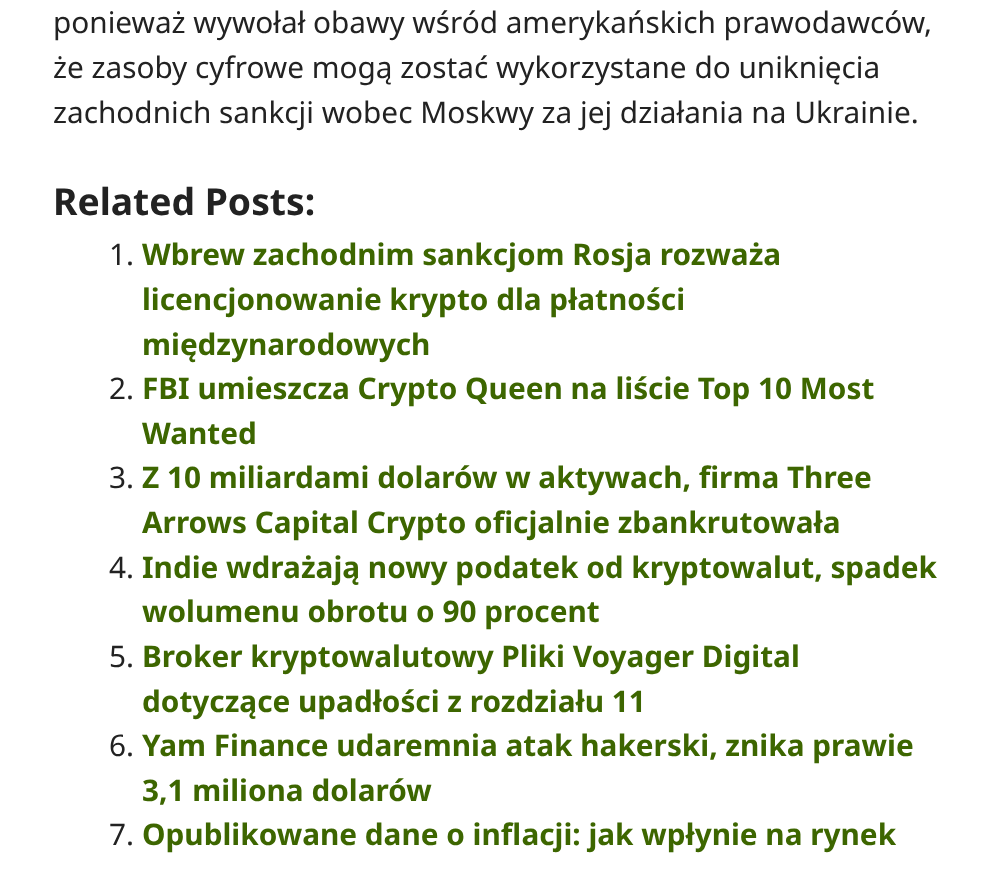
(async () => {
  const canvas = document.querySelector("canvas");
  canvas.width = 995;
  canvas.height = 883;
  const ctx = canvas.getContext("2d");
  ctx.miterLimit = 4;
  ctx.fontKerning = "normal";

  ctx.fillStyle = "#ffffff";
  ctx.fillRect(0, 0, 995, 883);
  ctx.font = "29.75px Noto Sans";
  ctx.fillStyle = "#222222";
  for (const [text, x, y] of [
    ["ponieważ wywołał obawy wśród amerykańskich prawodawców,", 53, 33],
    ["że zasoby cyfrowe mogą zostać wykorzystane do uniknięcia", 53, 78],
    ["zachodnich sankcji wobec Moskwy za jej działania na Ukrainie.", 53, 123],
  ]) {
    ctx.fillText(text, x, y);
  }
  ctx.font = "bold 37.25px Noto Sans";
  ctx.fillText("Related Posts:", 53, 215);
  ctx.font = "29.75px Noto Sans";
  ctx.fillText("1.", 109, 265);
  ctx.font = "bold 29.75px Noto Sans";
  ctx.fillStyle = "#3d6600";
  for (const [text, x, y] of [
    ["Wbrew zachodnim sankcjom Rosja rozważa", 142, 265],
    ["licencjonowanie krypto dla płatności", 142, 310],
    ["międzynarodowych", 142, 355],
  ]) {
    ctx.fillText(text, x, y);
  }
  ctx.font = "29.75px Noto Sans";
  ctx.fillStyle = "#222222";
  ctx.fillText("2.", 109, 399);
  ctx.font = "bold 29.75px Noto Sans";
  ctx.fillStyle = "#3d6600";
  ctx.fillText("FBI umieszcza Crypto Queen na liście Top 10 Most", 142, 399);
  ctx.fillText("Wanted", 142, 444);
  ctx.font = "29.75px Noto Sans";
  ctx.fillStyle = "#222222";
  ctx.fillText("3.", 109, 488);
  ctx.font = "bold 29.75px Noto Sans";
  ctx.fillStyle = "#3d6600";
  ctx.fillText("Z 10 miliardami dolarów w aktywach, firma Three", 142, 488);
  ctx.fillText("Arrows Capital Crypto oficjalnie zbankrutowała", 142, 533);
  ctx.font = "29.75px Noto Sans";
  ctx.fillStyle = "#222222";
  ctx.fillText("4.", 109, 578);
  ctx.font = "bold 29.75px Noto Sans";
  ctx.fillStyle = "#3d6600";
  ctx.fillText("Indie wdrażają nowy podatek od kryptowalut, spadek", 142, 578);
  ctx.fillText("wolumenu obrotu o 90 procent", 142, 622);
  ctx.font = "29.75px Noto Sans";
  ctx.fillStyle = "#222222";
  ctx.fillText("5.", 109, 667);
  ctx.font = "bold 29.75px Noto Sans";
  ctx.fillStyle = "#3d6600";
  ctx.fillText("Broker kryptowalutowy Pliki Voyager Digital", 142, 667);
  ctx.fillText("dotyczące upadłości z rozdziału 11", 142, 712);
  ctx.font = "29.75px Noto Sans";
  ctx.fillStyle = "#222222";
  ctx.fillText("6.", 109, 756);
  ctx.font = "bold 29.75px Noto Sans";
  ctx.fillStyle = "#3d6600";
  ctx.fillText("Yam Finance udaremnia atak hakerski, znika prawie", 142, 756);
  ctx.fillText("3,1 miliona dolarów", 142, 801);
  ctx.font = "29.75px Noto Sans";
  ctx.fillStyle = "#222222";
  ctx.fillText("7.", 109, 845);
  ctx.font = "bold 29.75px Noto Sans";
  ctx.fillStyle = "#3d6600";
  ctx.fillText("Opublikowane dane o inflacji: jak wpłynie na rynek", 142, 845);
})();
